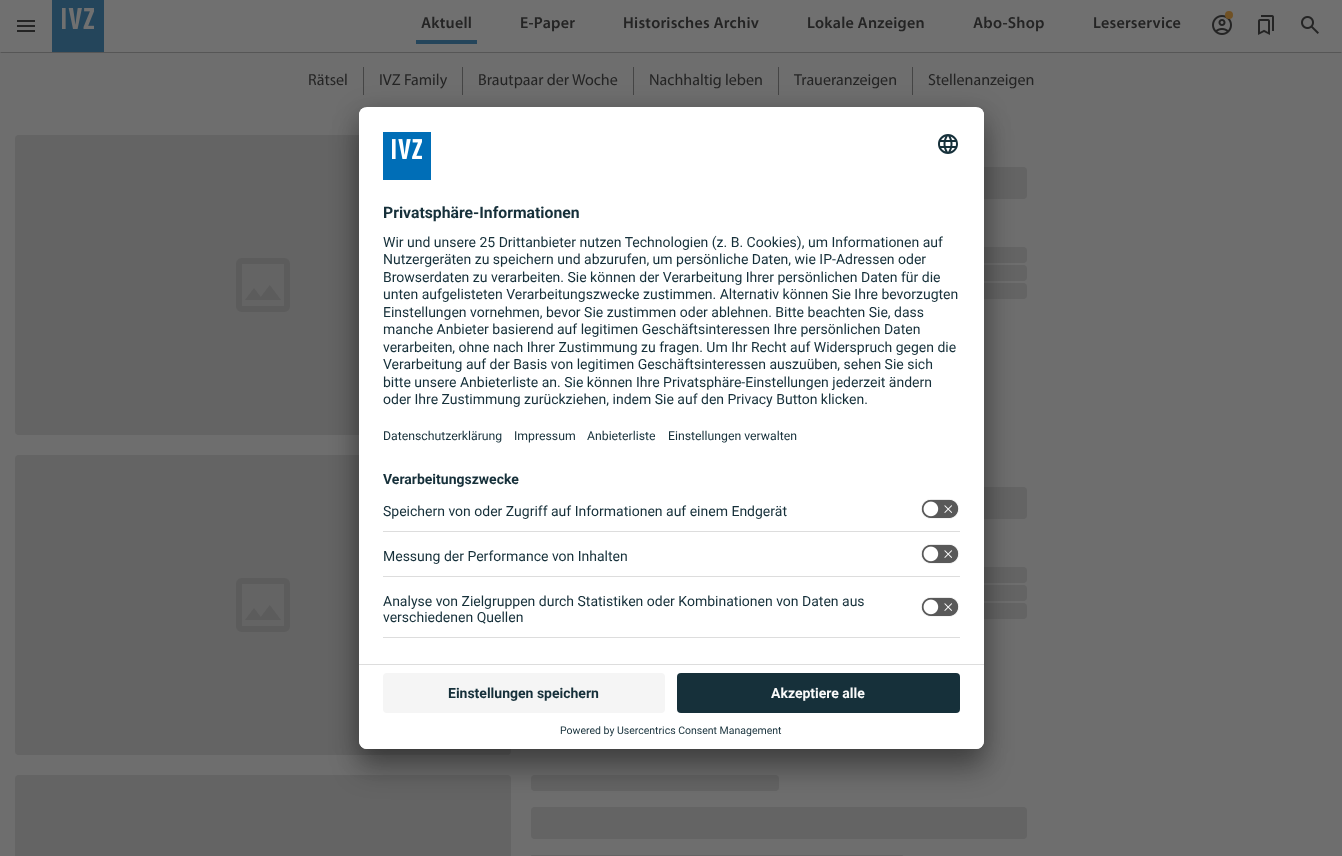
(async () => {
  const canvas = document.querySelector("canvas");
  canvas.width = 1342;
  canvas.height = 856;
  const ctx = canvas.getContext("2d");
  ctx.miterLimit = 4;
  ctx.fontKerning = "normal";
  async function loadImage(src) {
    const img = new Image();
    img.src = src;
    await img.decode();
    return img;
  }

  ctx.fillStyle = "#6e6e6e";
  ctx.fillRect(0, 0, 1342, 856);
  ctx.fillStyle = "rgba(36, 36, 36, 0.14)";
  ctx.filter = "blur(0.5px)";
  ctx.beginPath();
  ctx.rect(0, 1, 1342, 52);
  ctx.fill();
  ctx.filter = "none";
  ctx.fillStyle = "rgba(36, 36, 36, 0.2)";
  ctx.filter = "blur(0.5px)";
  ctx.beginPath();
  ctx.rect(1, 3, 1340, 50);
  ctx.fill();
  ctx.filter = "none";
  ctx.fillStyle = "#707070";
  ctx.fillRect(0, 0, 1342, 52);
  ctx.drawImage(await loadImage("img/1.png"), 17, 20, 18, 12);
  ctx.drawImage(await loadImage("img/2.png"), 52, 0, 52, 52);
  ctx.fillStyle = "#24455b";
  ctx.fillRect(416, 40, 61, 4);
  ctx.drawImage(await loadImage("img/3.png"), 1212, 15, 20, 20);
  ctx.fillStyle = "#705124";
  ctx.beginPath();
  ctx.arc(1229, 15, 4, 0, Math.PI * 2);
  ctx.fill();
  ctx.drawImage(await loadImage("img/4.png"), 1258, 15, 16, 20);
  ctx.drawImage(await loadImage("img/5.png"), 1301, 16, 18, 18);
  for (const [x, y, w, h, color] of [
    [363, 67, 1, 28, "#454545"],
    [462, 67, 1, 28, "#454545"],
    [633, 67, 1, 28, "#454545"],
    [778, 67, 1, 28, "#454545"],
    [912, 67, 1, 28, "#454545"],
  ]) {
    ctx.fillStyle = color;
    ctx.fillRect(x, y, w, h);
  }
  ctx.fillStyle = "#646464";
  ctx.beginPath();
  ctx.roundRect(15, 135, 496, 300, 4);
  ctx.fill();
  ctx.drawImage(await loadImage("img/6.png"), 236, 258, 54, 54);
  ctx.beginPath();
  ctx.roundRect(531, 167, 496, 32, 4);
  ctx.fill();
  ctx.beginPath();
  ctx.roundRect(531, 247, 496, 16, 4);
  ctx.fill();
  ctx.beginPath();
  ctx.roundRect(531, 265, 496, 16, 4);
  ctx.fill();
  ctx.beginPath();
  ctx.roundRect(531, 283, 496, 16, 4);
  ctx.fill();
  ctx.beginPath();
  ctx.roundRect(15, 455, 496, 300, 4);
  ctx.fill();
  ctx.drawImage(await loadImage("img/6.png"), 236, 578, 54, 54);
  ctx.beginPath();
  ctx.roundRect(531, 487, 496, 32, 4);
  ctx.fill();
  ctx.beginPath();
  ctx.roundRect(531, 567, 496, 16, 4);
  ctx.fill();
  ctx.beginPath();
  ctx.roundRect(531, 585, 496, 16, 4);
  ctx.fill();
  ctx.beginPath();
  ctx.roundRect(531, 603, 496, 16, 4);
  ctx.fill();
  ctx.beginPath();
  ctx.roundRect(15, 775, 496, 81, [4, 4, 0, 0]);
  ctx.fill();
  ctx.beginPath();
  ctx.roundRect(531, 775, 248, 16, 4);
  ctx.fill();
  ctx.beginPath();
  ctx.roundRect(531, 807, 496, 32, 4);
  ctx.fill();
  ctx.beginPath();
  ctx.roundRect(531, 855, 372, 1, [4, 4, 0, 0]);
  ctx.fill();
  ctx.fillStyle = "rgba(0, 0, 0, 0.3)";
  ctx.filter = "blur(14px)";
  ctx.beginPath();
  ctx.roundRect(359, 127, 625, 642, 8);
  ctx.fill();
  ctx.filter = "none";
  ctx.fillStyle = "rgba(0, 0, 0, 0.22)";
  ctx.filter = "blur(13px)";
  ctx.beginPath();
  ctx.roundRect(359, 112, 625, 642, 8);
  ctx.fill();
  ctx.filter = "none";
  ctx.fillStyle = "#ffffff";
  ctx.beginPath();
  ctx.roundRect(359, 107, 625, 642, 8);
  ctx.fill();
  ctx.save();
  ctx.beginPath();
  ctx.roundRect(359, 107, 625, 642, 8);
  ctx.clip();
  ctx.beginPath();
  ctx.roundRect(359, 107, 625, 557, [8, 8, 0, 0]);
  ctx.clip();
  ctx.fillRect(359, 108, 625, 556);
  ctx.fillRect(359, 108, 625, 351);
  ctx.restore();
  ctx.drawImage(await loadImage("img/7.png"), 383, 132, 48, 48);
  ctx.drawImage(await loadImage("img/8.png"), 938, 134, 20, 20);
  ctx.fillStyle = "#dddddd";
  ctx.fillRect(383, 531, 577, 1);
  ctx.drawImage(await loadImage("img/9.png"), 921, 499, 38, 20);
  ctx.fillRect(383, 576, 577, 1);
  ctx.drawImage(await loadImage("img/9.png"), 921, 544, 38, 20);
  ctx.fillRect(383, 637, 577, 1);
  ctx.drawImage(await loadImage("img/9.png"), 921, 597, 38, 20);
  ctx.fillStyle = "#ffffff";
  ctx.beginPath();
  ctx.roundRect(359, 664, 625, 85, [0, 0, 8, 8]);
  ctx.fill();
  ctx.fillStyle = "#dddddd";
  ctx.fillRect(359, 664, 625, 1);
  ctx.fillStyle = "#f5f5f5";
  ctx.beginPath();
  ctx.roundRect(383, 673, 282, 40, 4);
  ctx.fill();
  ctx.fillStyle = "#16303a";
  ctx.beginPath();
  ctx.roundRect(677, 673, 283, 40, 4);
  ctx.fill();
  ctx.letterSpacing = "0.25px";
  ctx.font = "600 16px Myriad";
  ctx.fillStyle = "#242424";
  for (const [text, x, y] of [
    ["Aktuell", 421, 28],
    ["E-Paper", 520, 28],
    ["Historisches Archiv", 623, 28],
    ["Lokale Anzeigen", 807, 28],
    ["Abo-Shop", 973, 28],
    ["Leserservice", 1093, 28],
  ]) {
    ctx.fillText(text, x, y);
  }
  ctx.letterSpacing = "0px";
  ctx.font = "16px Myriad";
  for (const [text, x, y] of [
    ["Rätsel", 308, 85],
    ["IVZ Family", 379, 85],
    ["Brautpaar der Woche", 478, 85],
    ["Nachhaltig leben", 649, 85],
    ["Traueranzeigen", 794, 85],
    ["Stellenanzeigen", 928, 85],
  ]) {
    ctx.fillText(text, x, y);
  }
  ctx.font = "bold 15.75px Roboto";
  ctx.fillStyle = "#16303a";
  ctx.fillText("Privatsphäre-Informationen", 383, 218);
  ctx.font = "14px Roboto";
  for (const [text, x, y] of [
    ["Wir und unsere 25 Drittanbieter nutzen Technologien (z. B. Cookies), um Informationen auf", 383, 247],
    ["Nutzergeräten zu speichern und abzurufen, um persönliche Daten, wie IP-Adressen oder", 383, 264],
    ["Browserdaten zu verarbeiten. Sie können der Verarbeitung Ihrer persönlichen Daten für die", 383, 282],
    ["unten aufgelisteten Verarbeitungszwecke zustimmen. Alternativ können Sie Ihre bevorzugten", 383, 299],
    ["Einstellungen vornehmen, bevor Sie zustimmen oder ablehnen. Bitte beachten Sie, dass", 383, 317],
    ["manche Anbieter basierend auf legitimen Geschäftsinteressen Ihre persönlichen Daten", 383, 334],
    ["verarbeiten, ohne nach Ihrer Zustimmung zu fragen. Um Ihr Recht auf Widerspruch gegen die", 383, 352],
    ["Verarbeitung auf der Basis von legitimen Geschäftsinteressen auszuüben, sehen Sie sich", 383, 369],
    ["bitte unsere Anbieterliste an. Sie können Ihre Privatsphäre-Einstellungen jederzeit ändern", 383, 387],
    ["oder Ihre Zustimmung zurückziehen, indem Sie auf den Privacy Button klicken.", 383, 404],
  ]) {
    ctx.fillText(text, x, y);
  }
  ctx.font = "12.25px Roboto";
  for (const [text, x, y] of [
    ["Datenschutzerklärung", 383, 440],
    ["Impressum", 514, 440],
    ["Anbieterliste", 587, 440],
    ["Einstellungen verwalten", 668, 440],
  ]) {
    ctx.fillText(text, x, y);
  }
  ctx.font = "bold 14px Roboto";
  ctx.fillText("Verarbeitungszwecke", 383, 484);
  ctx.font = "14px Roboto";
  for (const [text, x, y] of [
    ["Speichern von oder Zugriff auf Informationen auf einem Endgerät", 383, 516],
    ["Messung der Performance von Inhalten", 383, 561],
    ["Analyse von Zielgruppen durch Statistiken oder Kombinationen von Daten aus", 383, 606],
    ["verschiedenen Quellen", 383, 622],
  ]) {
    ctx.fillText(text, x, y);
  }
  ctx.font = "bold 14px Roboto";
  ctx.fillText("Einstellungen speichern", 448, 698);
  ctx.fillStyle = "#fafafa";
  ctx.fillText("Akzeptiere alle", 771, 698);
  ctx.font = "10.5px Roboto";
  ctx.fillStyle = "#16303a";
  ctx.fillText("Powered by Usercentrics Consent Management", 560, 734);
})();
